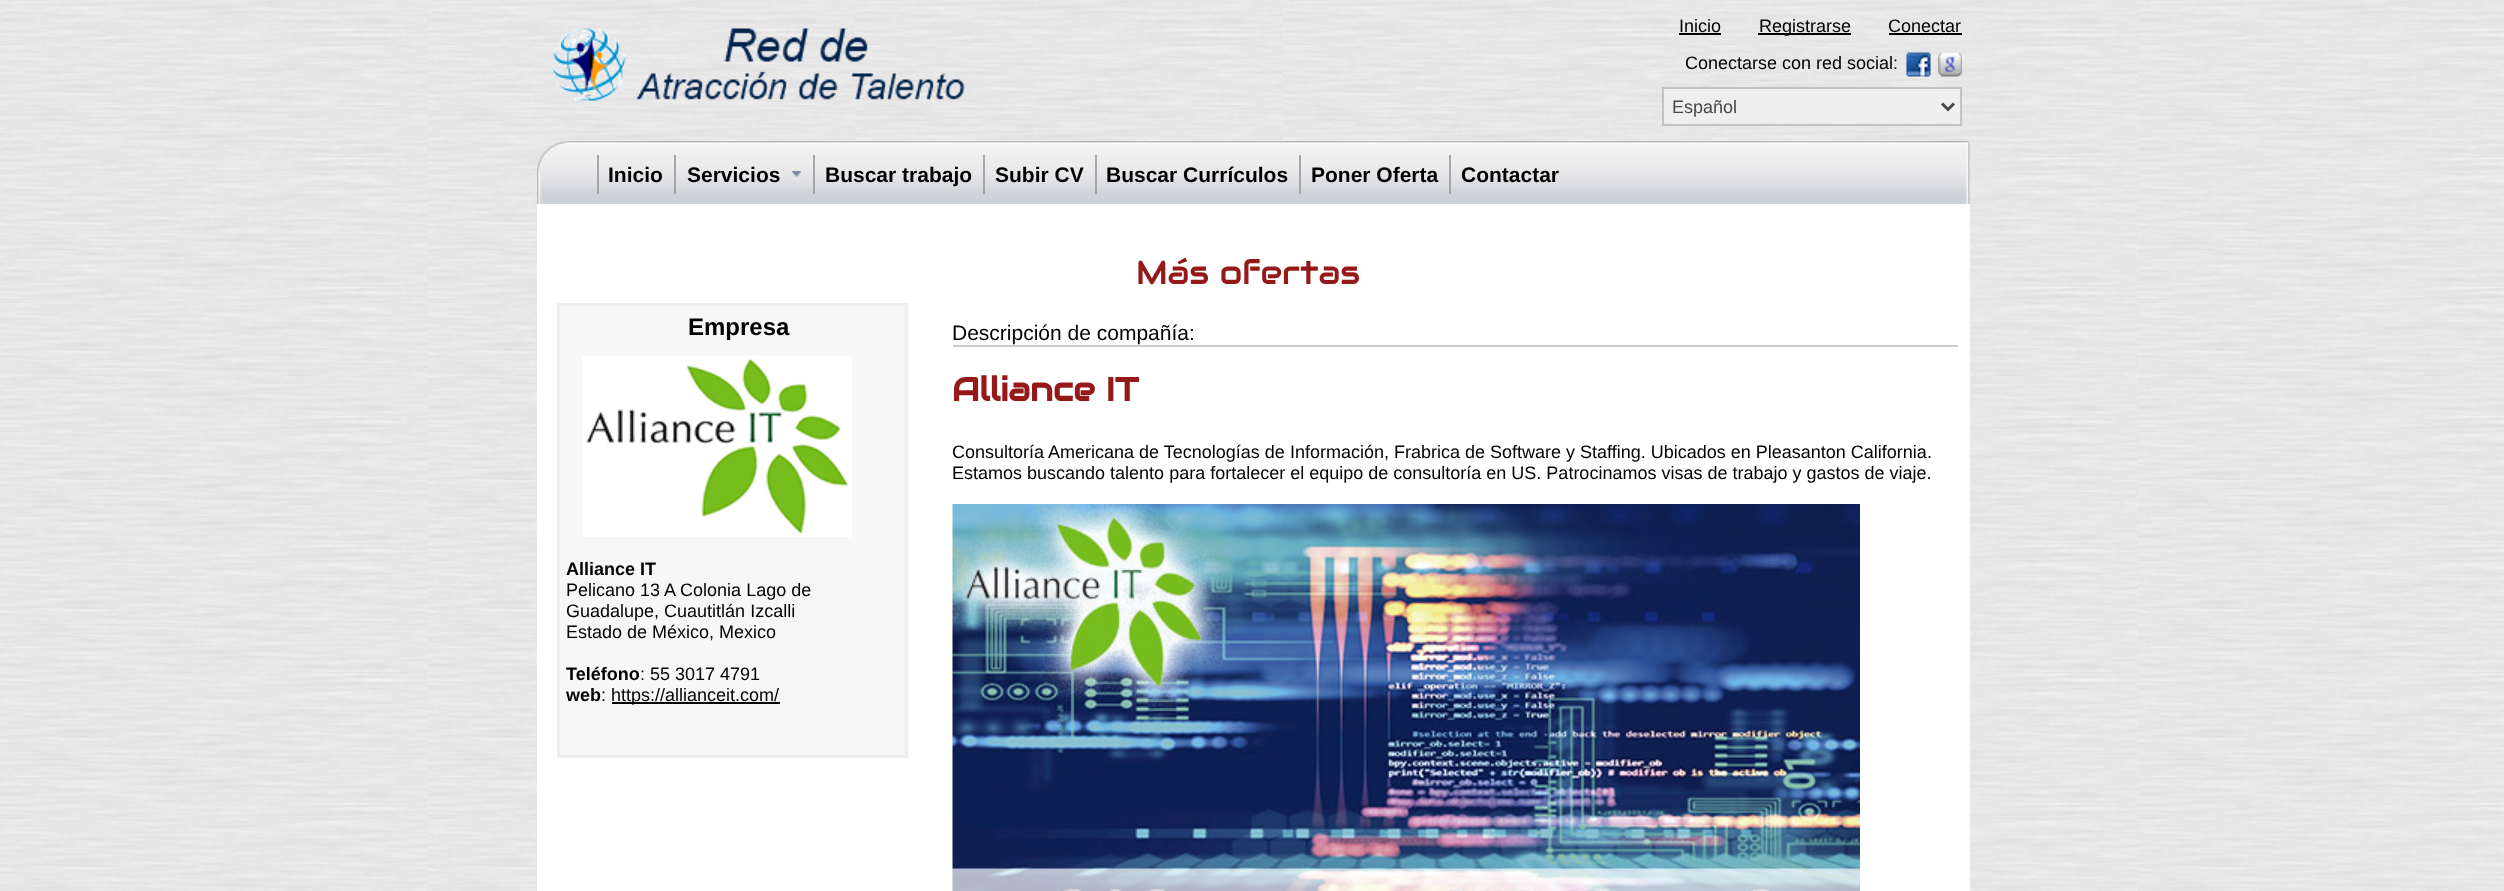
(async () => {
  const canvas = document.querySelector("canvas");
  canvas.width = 2504;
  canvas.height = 891;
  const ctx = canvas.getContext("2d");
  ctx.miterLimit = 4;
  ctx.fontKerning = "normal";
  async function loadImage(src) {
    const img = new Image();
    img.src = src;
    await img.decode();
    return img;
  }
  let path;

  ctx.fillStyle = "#ffffff";
  ctx.fillRect(0, 0, 2504, 891);
  ctx.drawImage(await loadImage("img/1.png"), 0, 0, 2504, 891);
  ctx.drawImage(await loadImage("img/2.png"), 551, 28, 414, 73);
  for (const [x, y, w, h, color] of [
    [1679, 33, 42, 2, "#000000"],
    [1758, 33, 93, 2, "#000000"],
    [1889, 33, 73, 2, "#000000"],
  ]) {
    ctx.fillStyle = color;
    ctx.fillRect(x, y, w, h);
  }
  ctx.drawImage(await loadImage("img/3.png"), 1906, 52, 25, 25);
  ctx.drawImage(await loadImage("img/4.png"), 1938, 52, 24, 25);
  ctx.fillStyle = "#efefef";
  ctx.beginPath();
  ctx.rect(1663, 88, 298, 37);
  ctx.fill();
  ctx.strokeStyle = "#c3c3c3";
  ctx.lineWidth = 2;
  ctx.stroke();
  path = new Path2D("M1942 103.5L1948 109.5L1954 103.5");
  ctx.strokeStyle = "#484846";
  ctx.lineWidth = 3;
  ctx.stroke(path);
  ctx.drawImage(await loadImage("img/5.png"), 537, 141, 30, 63);
  ctx.drawImage(await loadImage("img/6.png"), 567, 141, 1395, 63);
  ctx.fillStyle = "#a6a6a7";
  ctx.fillRect(597, 155, 2, 39);
  ctx.drawImage(await loadImage("img/7.png"), 791, 171, 11, 7);
  for (const [x, y, w, h, color] of [
    [674, 155, 2, 39, "#a6a6a7"],
    [813, 155, 2, 39, "#a6a6a7"],
    [983, 155, 2, 39, "#a6a6a7"],
    [1095, 155, 2, 39, "#a6a6a7"],
    [1299, 155, 2, 39, "#a6a6a7"],
    [1449, 155, 2, 39, "#a6a6a7"],
  ]) {
    ctx.fillStyle = color;
    ctx.fillRect(x, y, w, h);
  }
  ctx.drawImage(await loadImage("img/8.png"), 1962, 141, 8, 63);
  ctx.fillStyle = "#ffffff";
  ctx.fillRect(537, 204, 1433, 687);
  ctx.fillStyle = "#f7f7f7";
  ctx.beginPath();
  ctx.rect(558.5, 304.5, 348, 452);
  ctx.fill();
  ctx.strokeStyle = "#eeeeee";
  ctx.stroke();
  ctx.drawImage(await loadImage("img/9.png"), 582, 355, 270, 182);
  ctx.fillStyle = "#000000";
  ctx.fillRect(612, 702, 168, 2);
  ctx.fillStyle = "#cdcdcd";
  ctx.fillRect(953, 345, 1005, 2);
  ctx.drawImage(await loadImage("img/10.png"), 952, 504, 908, 387);
  ctx.font = "18px Liberation Sans";
  ctx.fillStyle = "#000000";
  for (const [text, x, y] of [
    ["Inicio", 1679, 32],
    ["Registrarse", 1759, 32],
    ["Conectar", 1888, 32],
    ["Conectarse con red social:", 1685, 69],
  ]) {
    ctx.fillText(text, x, y);
  }
  ctx.fillStyle = "#484846";
  ctx.fillText("Español", 1672, 113);
  ctx.font = "bold 21px Liberation Sans";
  ctx.fillStyle = "#000000";
  for (const [text, x, y] of [
    ["Inicio", 608, 182],
    ["Servicios", 687, 182],
    ["Buscar trabajo", 825, 182],
    ["Subir CV", 995, 182],
    ["Buscar Currículos", 1106, 182],
    ["Poner Oferta", 1311, 182],
    ["Contactar", 1461, 182],
  ]) {
    ctx.fillText(text, x, y);
  }
  ctx.font = "33px Audiowide";
  ctx.fillStyle = "#951919";
  ctx.fillText("Más ofertas", 1136, 284);
  ctx.font = "bold 24px Liberation Sans";
  ctx.fillStyle = "#000000";
  ctx.fillText("Empresa", 688, 335);
  ctx.font = "bold 18px Liberation Sans";
  ctx.fillText("Alliance IT", 566, 575);
  ctx.font = "18px Liberation Sans";
  for (const [text, x, y] of [
    ["Pelicano 13 A Colonia Lago de", 566, 596],
    ["Guadalupe, Cuautitlán Izcalli", 566, 617],
    ["Estado de México, Mexico", 566, 638],
  ]) {
    ctx.fillText(text, x, y);
  }
  ctx.font = "bold 18px Liberation Sans";
  ctx.fillText("Teléfono", 566, 680);
  ctx.font = "18px Liberation Sans";
  ctx.fillText(": 55 3017 4791", 640, 680);
  ctx.font = "bold 18px Liberation Sans";
  ctx.fillText("web", 566, 701);
  ctx.font = "18px Liberation Sans";
  ctx.fillText(":", 601, 701);
  ctx.fillText("https://allianceit.com/", 611, 701);
  ctx.font = "21px Liberation Sans";
  ctx.fillText("Descripción de compañía:", 952, 340);
  ctx.font = "bold 33px Audiowide";
  ctx.fillStyle = "#951919";
  ctx.fillText("Alliance IT", 952, 401);
  ctx.font = "18px Liberation Sans";
  ctx.fillStyle = "#000000";
  ctx.fillText("Consultoría Americana de Tecnologías de Información, Frabrica de Software y Staffing. Ubicados en Pleasanton California.", 952, 458);
  ctx.fillText("Estamos buscando talento para fortalecer el equipo de consultoría en US. Patrocinamos visas de trabajo y gastos de viaje.", 952, 479);
})();
